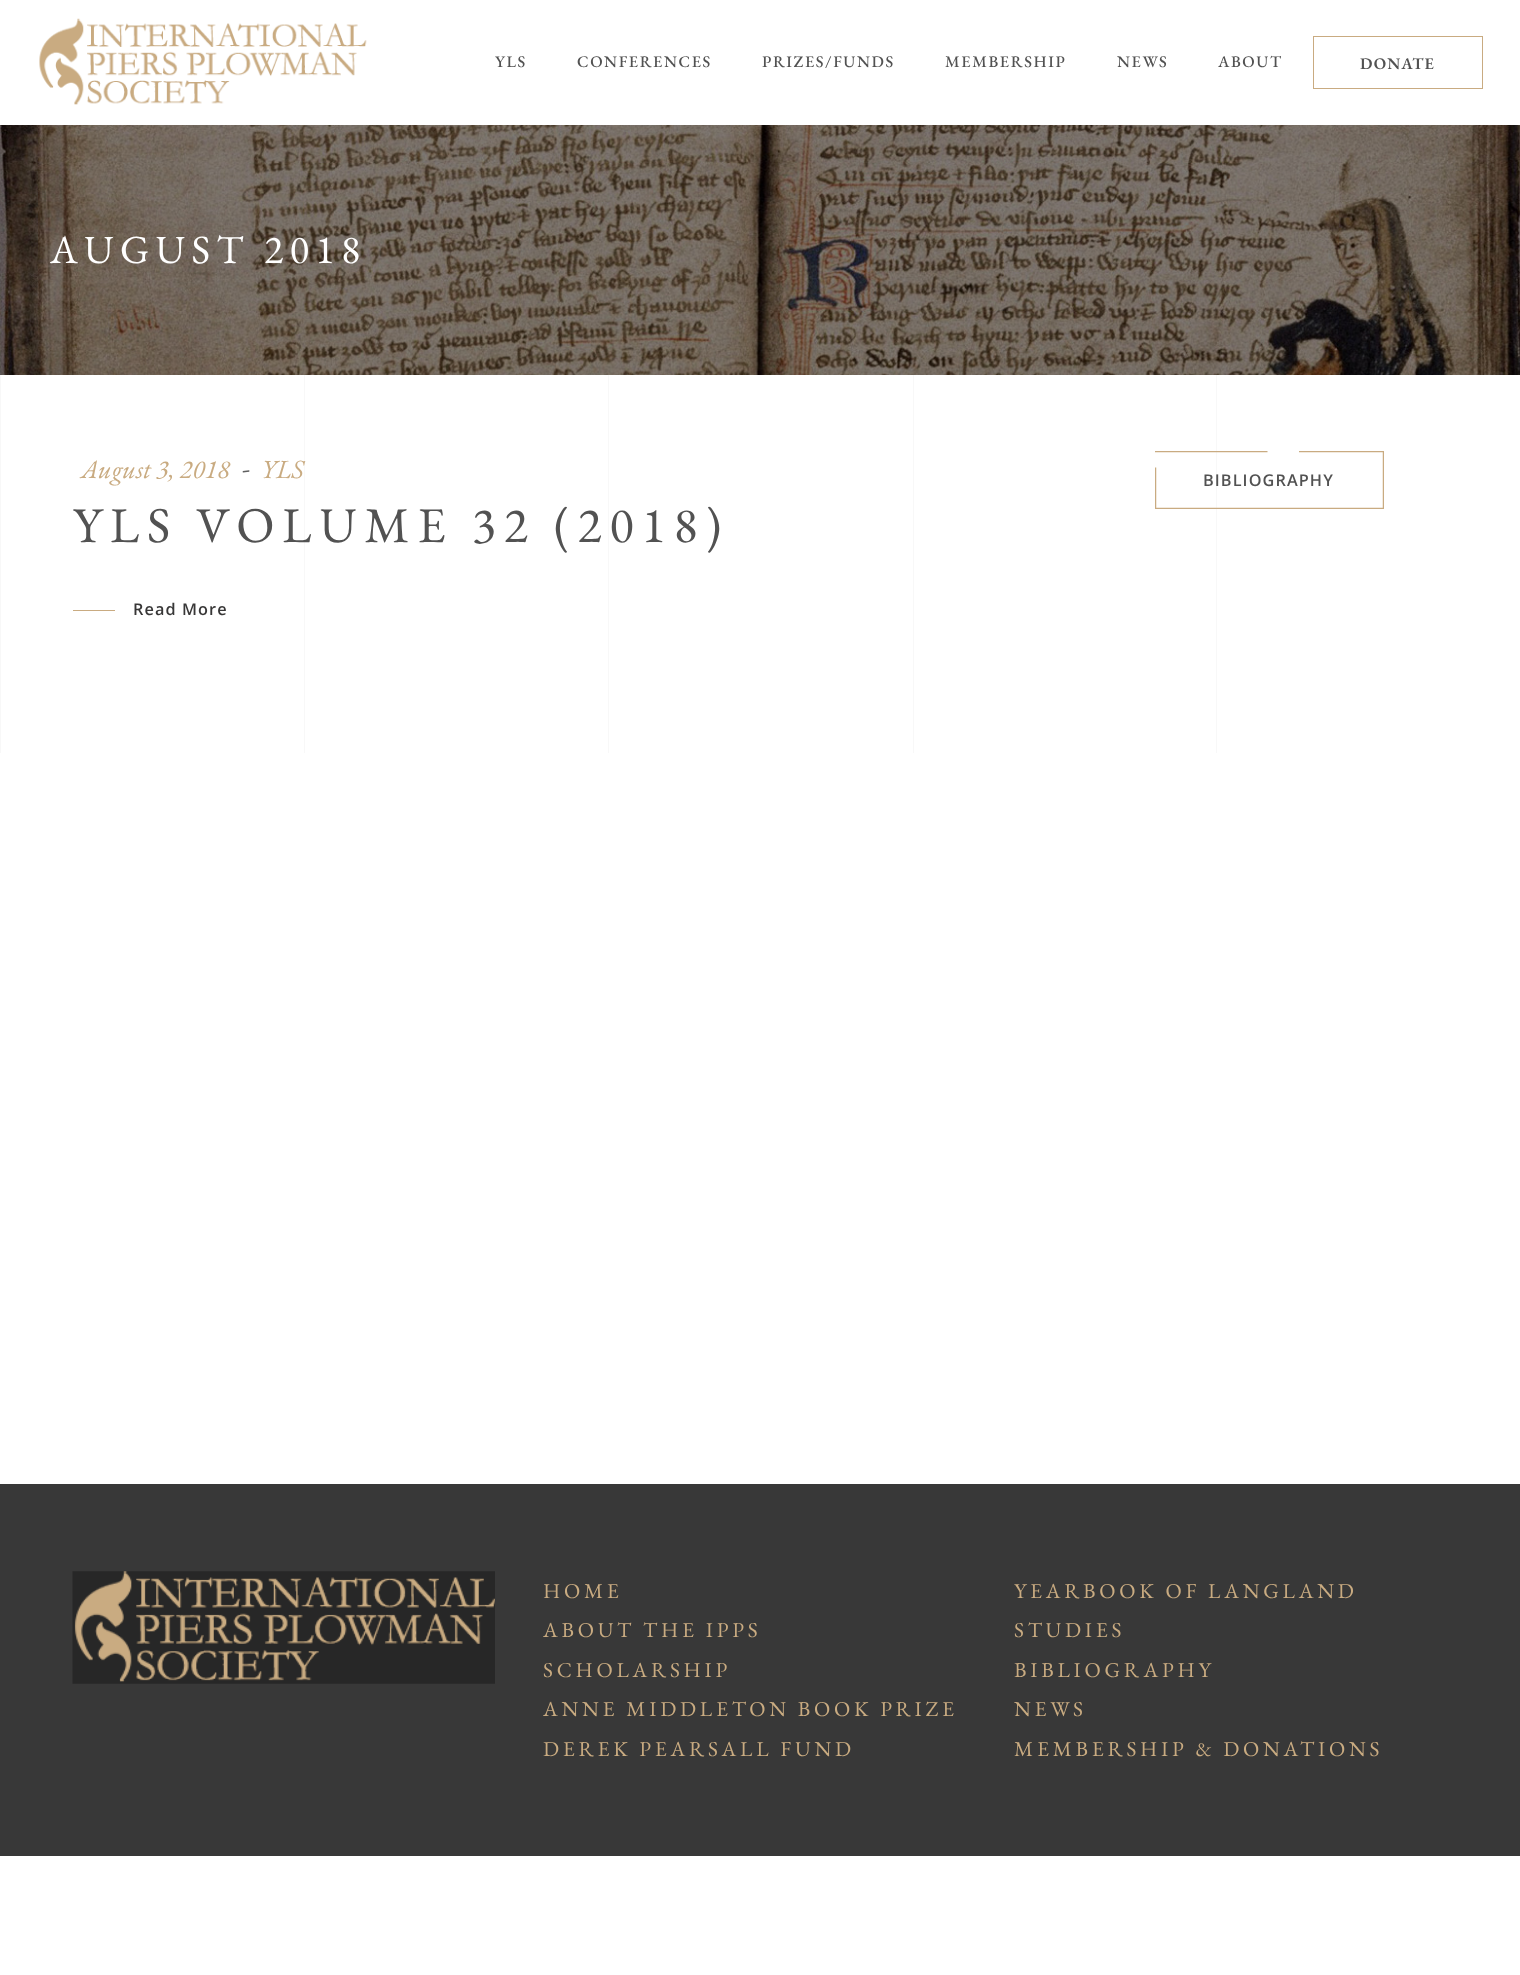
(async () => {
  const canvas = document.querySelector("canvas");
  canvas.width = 1520;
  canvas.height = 1975;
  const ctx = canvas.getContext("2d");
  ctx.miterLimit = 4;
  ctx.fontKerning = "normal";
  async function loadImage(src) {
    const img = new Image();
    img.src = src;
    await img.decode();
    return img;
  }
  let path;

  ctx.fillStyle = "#ffffff";
  ctx.fillRect(0, 0, 1520, 1975);
  ctx.drawImage(await loadImage("img/1.png"), 39, 18, 328, 87);
  ctx.strokeStyle = "#c9ab81";
  ctx.strokeRect(1313.5, 36.5, 169, 52);
  ctx.drawImage(await loadImage("img/2.png"), 0, 125, 1520, 250);
  for (const [x, y, w, h, color] of [
    [0, 375, 1, 378, "#f8f8f8"],
    [304, 375, 1, 378, "#f8f8f8"],
    [608, 375, 1, 378, "#f8f8f8"],
    [913, 375, 1, 378, "#f8f8f8"],
    [1216, 375, 1, 378, "#f8f8f8"],
    [73, 610, 42, 1, "#c9ab81"],
    [0, 1484, 1520, 372, "#383838"],
  ]) {
    ctx.fillStyle = color;
    ctx.fillRect(x, y, w, h);
  }
  ctx.drawImage(await loadImage("img/3.png"), 72, 1571, 423, 113);
  ctx.letterSpacing = "1.6px";
  ctx.font = "500 16.25px EB Garamond";
  ctx.fillStyle = "#525252";
  for (const [text, x, y] of [
    ["YLS", 495, 67],
    ["CONFERENCES", 577, 67],
    ["PRIZES/FUNDS", 762, 67],
    ["MEMBERSHIP", 945, 67],
    ["NEWS", 1117, 67],
    ["ABOUT", 1218, 67],
  ]) {
    ctx.fillText(text, x, y);
  }
  ctx.letterSpacing = "1.1px";
  ctx.font = "600 16.25px EB Garamond";
  ctx.fillText("DONATE", 1360, 69);
  ctx.letterSpacing = "6.4px";
  ctx.font = "40px EB Garamond";
  ctx.fillStyle = "#ffffff";
  ctx.fillText("AUGUST 2018", 50, 263);
  ctx.letterSpacing = "0px";
  ctx.font = "italic 26.25px EB Garamond";
  ctx.fillStyle = "#c9ab81";
  ctx.fillText("August 3, 2018", 81, 478);
  ctx.font = "26.25px Alegreya Sans";
  ctx.fillStyle = "#5f5f5f";
  ctx.fillText("-", 242, 478);
  ctx.font = "italic 26.25px EB Garamond";
  ctx.fillStyle = "#c9ab81";
  ctx.fillText("YLS", 261, 478);
  ctx.letterSpacing = "8px";
  ctx.font = "50px EB Garamond";
  ctx.fillStyle = "#525252";
  ctx.fillText("YLS VOLUME 32 (2018)", 73, 542);
  ctx.letterSpacing = "1.1px";
  ctx.font = "600 16.25px Open Sans";
  ctx.fillStyle = "#383737";
  ctx.fillText("Read More", 133, 615);
  ctx.fillStyle = "#525252";
  ctx.fillText("BIBLIOGRAPHY", 1203, 486);
  ctx.save();
  ctx.beginPath();
  ctx.rect(1155, 451, 229, 58);
  ctx.clip();
  path = new Path2D("M1155 451H1267.5M1299 451H1384V509H1155V467.5");
  ctx.lineWidth = 2.5;
  ctx.stroke(path);
  ctx.restore();
  ctx.letterSpacing = "3.75px";
  ctx.font = "21.25px EB Garamond";
  ctx.fillStyle = "#c9ab81";
  for (const [text, x, y] of [
    ["HOME", 543, 1598],
    ["ABOUT THE IPPS", 543, 1637],
    ["SCHOLARSHIP", 543, 1677],
    ["ANNE MIDDLETON BOOK PRIZE", 543, 1716],
    ["DEREK PEARSALL FUND", 543, 1756],
    ["YEARBOOK OF LANGLAND", 1014, 1598],
    ["STUDIES", 1014, 1637],
    ["BIBLIOGRAPHY", 1014, 1677],
    ["NEWS", 1014, 1716],
    ["MEMBERSHIP & DONATIONS", 1014, 1756],
  ]) {
    ctx.fillText(text, x, y);
  }
})();
